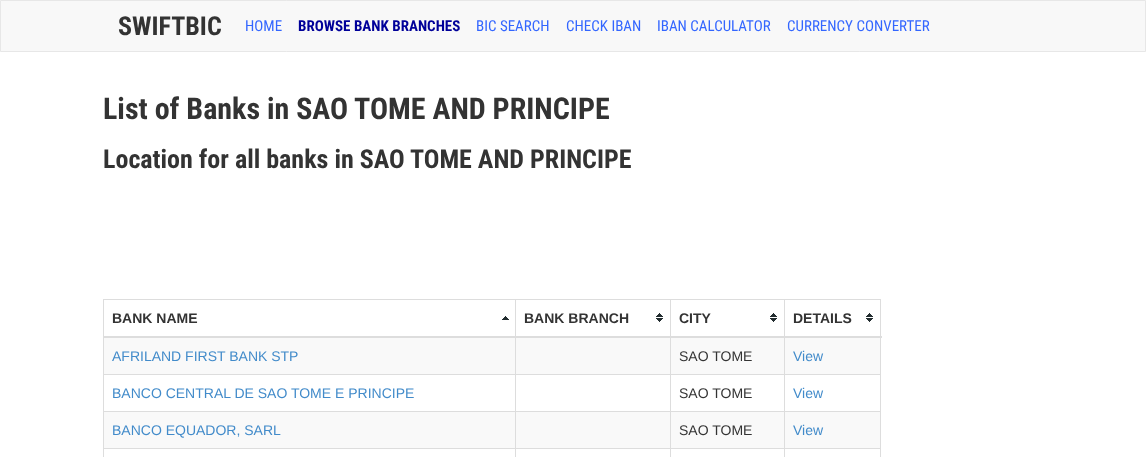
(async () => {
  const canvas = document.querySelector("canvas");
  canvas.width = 1146;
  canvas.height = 457;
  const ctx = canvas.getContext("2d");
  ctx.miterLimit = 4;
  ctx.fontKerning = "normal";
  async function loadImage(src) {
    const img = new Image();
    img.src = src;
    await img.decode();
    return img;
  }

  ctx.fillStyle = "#ffffff";
  ctx.fillRect(0, 0, 1146, 457);
  ctx.fillStyle = "#f8f8f8";
  ctx.beginPath();
  ctx.rect(0.5, 0.5, 1145, 51);
  ctx.fill();
  ctx.strokeStyle = "#e7e7e7";
  ctx.stroke();
  for (const [x, y, w, h, color] of [
    [103, 299, 778, 1, "#dddddd"],
    [880, 299, 1, 158, "#dddddd"],
    [103, 299, 1, 158, "#dddddd"],
  ]) {
    ctx.fillStyle = color;
    ctx.fillRect(x, y, w, h);
  }
  ctx.drawImage(await loadImage("img/1.png"), 502, 316, 7, 4);
  ctx.drawImage(await loadImage("img/2.png"), 656, 313, 7, 9);
  ctx.drawImage(await loadImage("img/2.png"), 770, 313, 7, 9);
  ctx.drawImage(await loadImage("img/2.png"), 866, 313, 7, 9);
  for (const [x, y, w, h, color] of [
    [784, 374, 97, 1, "#dddddd"],
    [784, 411, 97, 1, "#dddddd"],
    [784, 448, 97, 1, "#dddddd"],
    [784, 448, 1, 9, "#dddddd"],
    [670, 448, 115, 1, "#dddddd"],
    [784, 411, 1, 38, "#dddddd"],
    [670, 411, 115, 1, "#dddddd"],
    [784, 374, 1, 38, "#dddddd"],
    [670, 374, 115, 1, "#dddddd"],
    [670, 448, 1, 9, "#dddddd"],
    [515, 448, 156, 1, "#dddddd"],
    [670, 411, 1, 38, "#dddddd"],
    [515, 411, 156, 1, "#dddddd"],
    [670, 374, 1, 38, "#dddddd"],
    [515, 374, 156, 1, "#dddddd"],
    [515, 448, 1, 9, "#dddddd"],
    [103, 448, 413, 1, "#dddddd"],
    [515, 411, 1, 38, "#dddddd"],
    [103, 411, 413, 1, "#dddddd"],
    [515, 374, 1, 38, "#dddddd"],
    [103, 374, 413, 1, "#dddddd"],
    [515, 299, 1, 76, "#dddddd"],
    [670, 299, 1, 76, "#dddddd"],
    [784, 299, 1, 76, "#dddddd"],
    [103, 336, 779, 2, "#dddddd"],
    [104, 338, 411, 36, "#f9f9f9"],
    [516, 338, 154, 36, "#f9f9f9"],
    [671, 338, 113, 36, "#f9f9f9"],
    [785, 338, 95, 36, "#f9f9f9"],
    [104, 412, 411, 36, "#f9f9f9"],
    [516, 412, 154, 36, "#f9f9f9"],
    [671, 412, 113, 36, "#f9f9f9"],
    [785, 412, 95, 36, "#f9f9f9"],
  ]) {
    ctx.fillStyle = color;
    ctx.fillRect(x, y, w, h);
  }
  ctx.font = "bold 26px Roboto Condensed";
  ctx.fillStyle = "#333333";
  ctx.fillText("SWIFTBIC", 118, 35);
  ctx.font = "15px Roboto Condensed";
  ctx.fillStyle = "#3366ff";
  ctx.fillText("HOME", 245, 31);
  ctx.font = "bold 15px Roboto Condensed";
  ctx.fillStyle = "#000099";
  ctx.fillText("BROWSE BANK BRANCHES", 298, 31);
  ctx.font = "15px Roboto Condensed";
  ctx.fillStyle = "#3366ff";
  for (const [text, x, y] of [
    ["BIC SEARCH", 476, 31],
    ["CHECK IBAN", 566, 31],
    ["IBAN CALCULATOR", 657, 31],
    ["CURRENCY CONVERTER", 787, 31],
  ]) {
    ctx.fillText(text, x, y);
  }
  ctx.font = "bold 30px Roboto Condensed";
  ctx.fillStyle = "#333333";
  ctx.fillText("List of Banks in SAO TOME AND PRINCIPE", 103, 119);
  ctx.font = "bold 26px Roboto Condensed";
  ctx.fillText("Location for all banks in SAO TOME AND PRINCIPE", 103, 168);
  ctx.font = "bold 14px Liberation Sans";
  for (const [text, x, y] of [
    ["BANK NAME", 112, 323],
    ["BANK BRANCH", 524, 323],
    ["CITY", 679, 323],
    ["DETAILS", 793, 323],
  ]) {
    ctx.fillText(text, x, y);
  }
  ctx.font = "14px Liberation Sans";
  ctx.fillStyle = "#428bca";
  ctx.fillText("AFRILAND FIRST BANK STP", 112, 361);
  ctx.fillStyle = "#333333";
  ctx.fillText("SAO TOME", 679, 361);
  ctx.fillStyle = "#428bca";
  ctx.fillText("View", 793, 361);
  ctx.fillText("BANCO CENTRAL DE SAO TOME E PRINCIPE", 112, 398);
  ctx.fillStyle = "#333333";
  ctx.fillText("SAO TOME", 679, 398);
  ctx.fillStyle = "#428bca";
  ctx.fillText("View", 793, 398);
  ctx.fillText("BANCO EQUADOR, SARL", 112, 435);
  ctx.fillStyle = "#333333";
  ctx.fillText("SAO TOME", 679, 435);
  ctx.fillStyle = "#428bca";
  ctx.fillText("View", 793, 435);
})();
